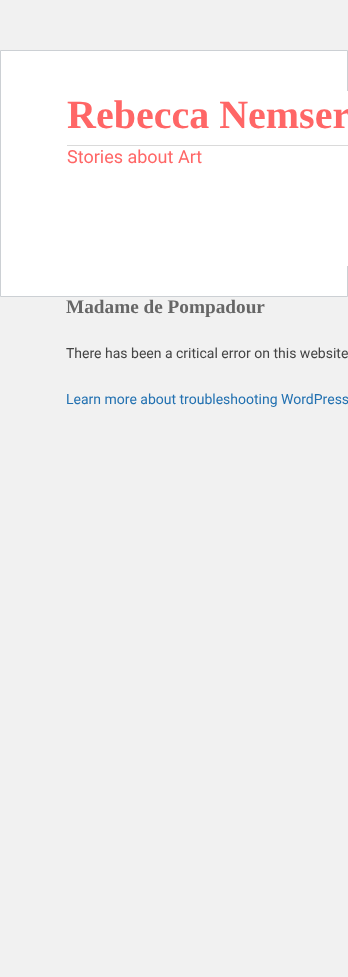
(async () => {
  const canvas = document.querySelector("canvas");
  canvas.width = 348;
  canvas.height = 977;
  const ctx = canvas.getContext("2d");
  ctx.miterLimit = 4;
  ctx.fontKerning = "normal";

  ctx.fillStyle = "#f1f1f1";
  ctx.fillRect(0, 0, 348, 977);
  ctx.fillStyle = "#ffffff";
  ctx.beginPath();
  ctx.rect(0.5, 50.5, 347, 246);
  ctx.fill();
  ctx.strokeStyle = "#ccd0d4";
  ctx.stroke();
  ctx.fillRect(347, 91, 1, 175);
  ctx.fillStyle = "#dadada";
  ctx.fillRect(67, 145, 281, 1);
  ctx.font = "bold 40px Liberation Serif";
  ctx.fillStyle = "#ff6666";
  ctx.fillText("Rebecca Nemser", 67, 128);
  ctx.font = "18px Roboto";
  ctx.fillText("Stories about Art", 67, 163);
  ctx.font = "bold 19.25px Liberation Serif";
  ctx.fillStyle = "#666666";
  ctx.fillText("Madame de Pompadour", 66, 313);
  ctx.font = "14px Roboto";
  ctx.fillStyle = "#444444";
  ctx.fillText("There has been a critical error on this website", 66, 358);
  ctx.fillStyle = "#2271b1";
  ctx.fillText("Learn more about troubleshooting WordPress", 66, 404);
})();
